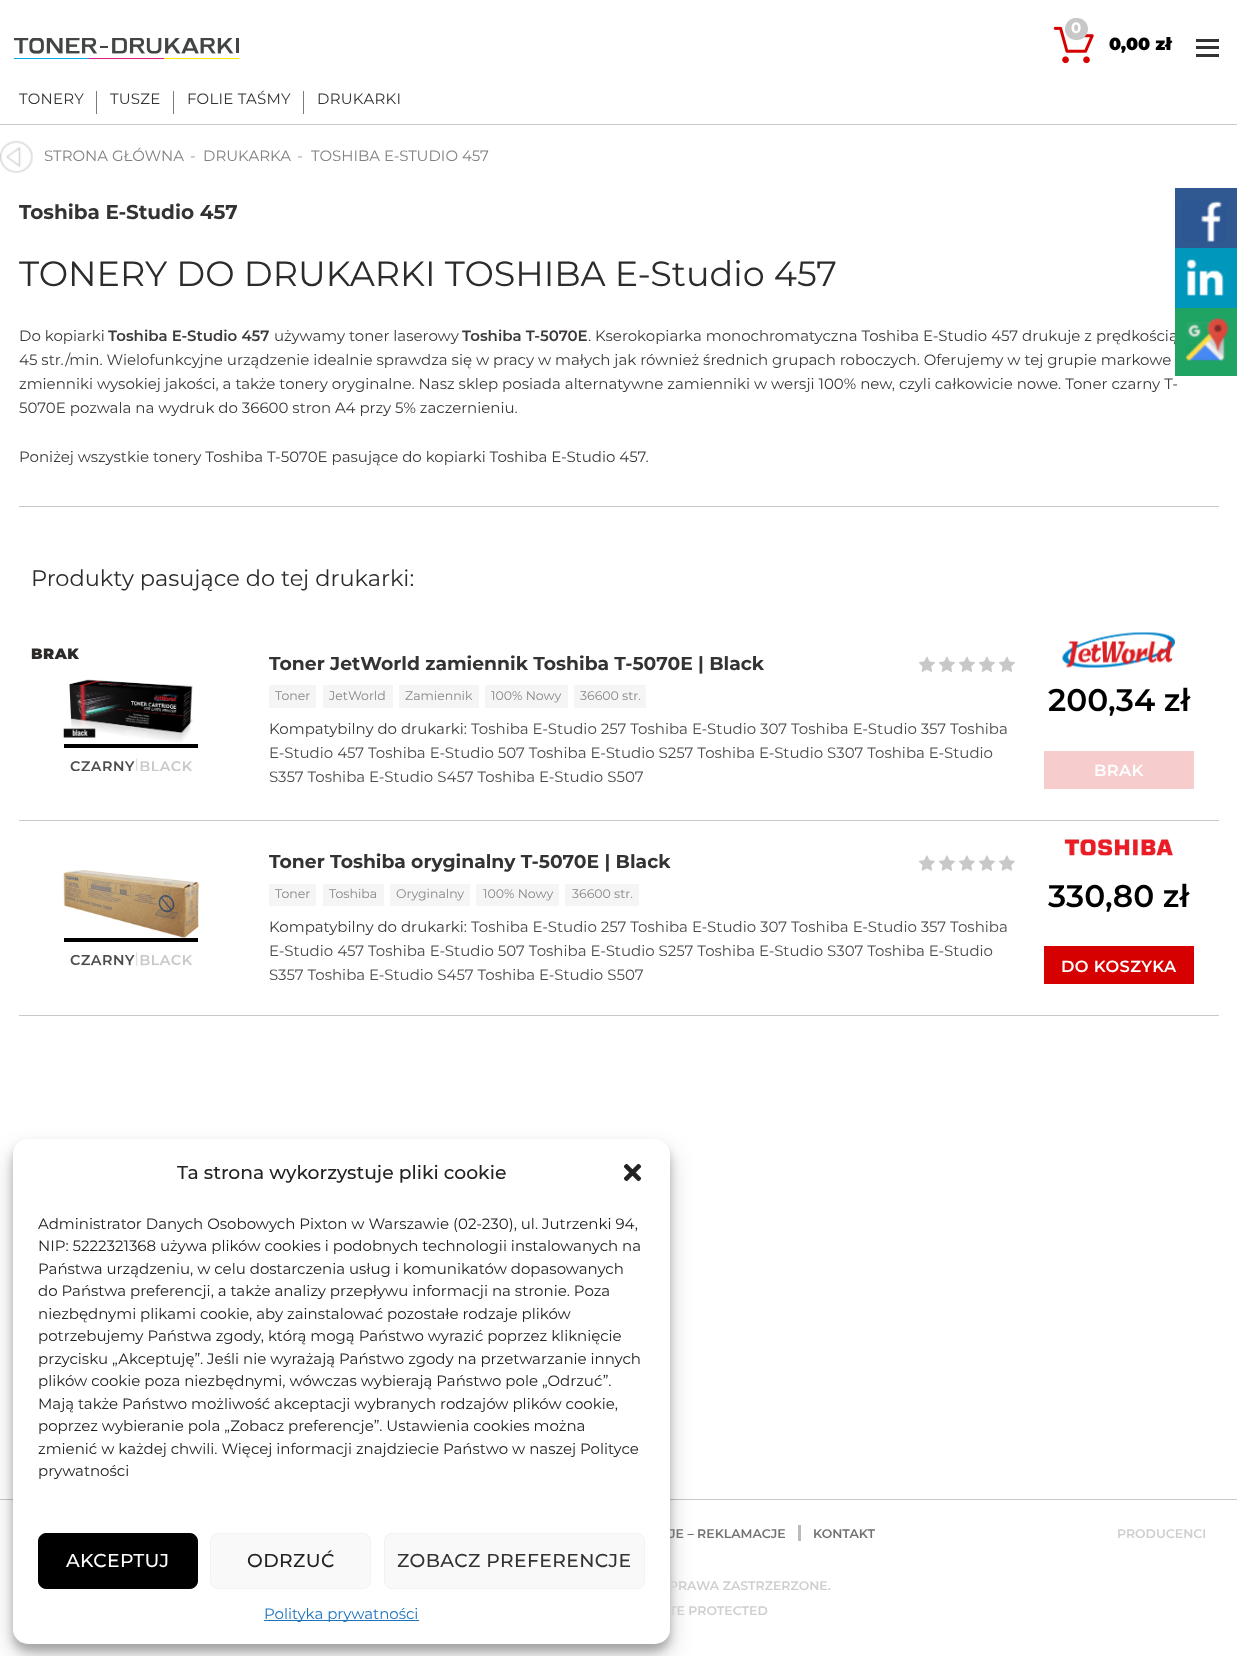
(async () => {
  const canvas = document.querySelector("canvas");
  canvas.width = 1237;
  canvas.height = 1656;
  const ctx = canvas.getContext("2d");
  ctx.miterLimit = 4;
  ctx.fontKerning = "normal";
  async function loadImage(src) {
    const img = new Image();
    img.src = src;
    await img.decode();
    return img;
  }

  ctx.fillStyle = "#ffffff";
  ctx.fillRect(0, 0, 1237, 1656);
  ctx.drawImage(await loadImage("img/1.png"), 14, 38, 225, 21);
  ctx.drawImage(await loadImage("img/2.png"), 1053, 26, 41, 38);
  ctx.fillStyle = "#c8c8c8";
  ctx.beginPath();
  ctx.roundRect(1065, 18, 23, 22, 11);
  ctx.fill();
  for (const [x, y, w, h, color] of [
    [1196, 46, 23, 3, "#333333"],
    [1196, 39, 23, 3, "#333333"],
    [1196, 54, 23, 3, "#333333"],
    [0, 124, 1237, 1, "#c8c8c8"],
    [96, 91, 1, 23, "#7b7b7b"],
    [173, 91, 1, 23, "#7b7b7b"],
    [303, 91, 1, 23, "#7b7b7b"],
  ]) {
    ctx.fillStyle = color;
    ctx.fillRect(x, y, w, h);
  }
  ctx.drawImage(await loadImage("img/3.png"), 0, 141, 33, 32);
  ctx.fillStyle = "#c8c8c8";
  ctx.fillRect(19, 506, 1200, 1);
  ctx.fillRect(19, 820, 1200, 1);
  ctx.drawImage(await loadImage("img/4.png"), 63, 679, 130, 64);
  ctx.drawImage(await loadImage("img/5.png"), 64, 744, 134, 27);
  ctx.drawImage(await loadImage("img/6.png"), 918, 656, 97, 16);
  for (const [x, y, w, h, color] of [
    [269, 685, 47, 23, "#f5f5f5"],
    [323, 685, 70, 23, "#f5f5f5"],
    [399, 685, 80, 23, "#f5f5f5"],
    [485, 685, 83, 23, "#f5f5f5"],
    [574, 685, 72, 23, "#f5f5f5"],
  ]) {
    ctx.fillStyle = color;
    ctx.fillRect(x, y, w, h);
  }
  ctx.drawImage(await loadImage("img/7.png"), 1062, 632, 113, 36);
  ctx.fillStyle = "#f7cccc";
  ctx.fillRect(1044, 751, 150, 38);
  ctx.fillStyle = "#c8c8c8";
  ctx.fillRect(19, 1015, 1200, 1);
  ctx.drawImage(await loadImage("img/8.png"), 63, 870, 136, 68);
  ctx.drawImage(await loadImage("img/9.png"), 64, 938, 134, 28);
  ctx.drawImage(await loadImage("img/10.png"), 918, 855, 97, 16);
  for (const [x, y, w, h, color] of [
    [269, 884, 47, 22, "#f5f5f5"],
    [323, 884, 61, 22, "#f5f5f5"],
    [390, 884, 80, 22, "#f5f5f5"],
    [476, 884, 83, 22, "#f5f5f5"],
    [565, 884, 74, 22, "#f5f5f5"],
  ]) {
    ctx.fillStyle = color;
    ctx.fillRect(x, y, w, h);
  }
  ctx.drawImage(await loadImage("img/11.png"), 1064, 839, 109, 17);
  ctx.fillStyle = "#d60000";
  ctx.fillRect(1044, 946, 150, 38);
  ctx.fillStyle = "#305891";
  ctx.fillRect(1175, 188, 62, 60);
  ctx.drawImage(await loadImage("img/12.png"), 1182, 201, 45, 41);
  ctx.fillStyle = "#0097bd";
  ctx.fillRect(1175, 248, 62, 60);
  ctx.drawImage(await loadImage("img/13.png"), 1186, 259, 38, 37);
  ctx.fillStyle = "#c8c8c8";
  ctx.fillRect(0, 1499, 1237, 1);
  ctx.fillStyle = "rgba(0, 0, 0, 0.23)";
  ctx.filter = "blur(4px)";
  ctx.beginPath();
  ctx.roundRect(13, 1146, 657, 505, 15);
  ctx.fill();
  ctx.filter = "none";
  ctx.fillStyle = "rgba(0, 0, 0, 0.19)";
  ctx.filter = "blur(12.5px)";
  ctx.beginPath();
  ctx.roundRect(13, 1151, 657, 505, 15);
  ctx.fill();
  ctx.filter = "none";
  ctx.fillStyle = "#bbbbbb";
  ctx.fillRect(798, 1525, 3, 16);
  ctx.font = "bold 15px Montserrat";
  ctx.fillStyle = "#ffffff";
  ctx.fillText("0", 1071, 33);
  ctx.font = "900 17.5px Montserrat";
  ctx.fillStyle = "#000000";
  ctx.fillText("0,00 zł", 1109, 50);
  ctx.letterSpacing = "0.25px";
  ctx.font = "15px Montserrat";
  ctx.fillStyle = "#333333";
  for (const [text, x, y] of [
    ["TONERY", 19, 104],
    ["TUSZE", 110, 104],
    ["FOLIE TAŚMY", 187, 104],
    ["DRUKARKI", 317, 104],
  ]) {
    ctx.fillText(text, x, y);
  }
  ctx.letterSpacing = "0px";
  ctx.fillStyle = "#838080";
  ctx.fillText("STRONA GŁÓWNA", 44, 161);
  ctx.fillStyle = "#9c9a9a";
  ctx.fillText("-", 190, 161);
  ctx.fillStyle = "#838080";
  ctx.fillText("DRUKARKA", 203, 161);
  ctx.fillStyle = "#9c9a9a";
  ctx.fillText("-", 297, 161);
  ctx.fillStyle = "#838080";
  ctx.fillText("TOSHIBA E-STUDIO 457", 311, 161);
  ctx.save();
  ctx.beginPath();
  ctx.rect(19, 200, 1200, 294);
  ctx.clip();
  ctx.font = "bold 20px Montserrat";
  ctx.fillStyle = "#333333";
  ctx.fillText("Toshiba E-Studio 457", 19, 219);
  ctx.restore();
  ctx.font = "35px Montserrat";
  ctx.fillStyle = "#2d2a2a";
  ctx.fillText("TONERY DO DRUKARKI TOSHIBA E-Studio 457", 19, 286);
  ctx.font = "15px Montserrat";
  ctx.fillStyle = "#3d3939";
  ctx.fillText("Do kopiarki", 19, 341);
  ctx.font = "600 15px Montserrat";
  ctx.fillText("Toshiba E-Studio 457", 108, 341);
  ctx.font = "15px Montserrat";
  ctx.fillText("używamy toner laserowy", 274, 341);
  ctx.font = "600 15px Montserrat";
  ctx.fillText("Toshiba T-5070E", 462, 341);
  ctx.font = "15px Montserrat";
  for (const [text, x, y] of [
    [". Kserokopiarka monochromatyczna Toshiba E-Studio 457 drukuje z prędkością", 588, 341],
    ["45 str./min. Wielofunkcyjne urządzenie idealnie sprawdza się w pracy w małych jak również średnich grupach roboczych. Oferujemy w tej grupie markowe", 19, 365],
    ["zmienniki wysokiej jakości, a także tonery oryginalne. Nasz sklep posiada alternatywne zamienniki w wersji 100% new, czyli całkowicie nowe. Toner czarny T-", 19, 389],
    ["5070E pozwala na wydruk do 36600 stron A4 przy 5% zaczernieniu.", 19, 413],
    ["Poniżej wszystkie tonery Toshiba T-5070E pasujące do kopiarki Toshiba E-Studio 457.", 19, 462],
  ]) {
    ctx.fillText(text, x, y);
  }
  ctx.font = "22.5px Montserrat";
  ctx.fillStyle = "#2d2a2a";
  ctx.fillText("Produkty pasujące do tej drukarki:", 31, 586);
  ctx.letterSpacing = "0.5px";
  ctx.font = "900 15px Montserrat";
  ctx.fillText("BRAK", 31, 659);
  ctx.letterSpacing = "0px";
  ctx.font = "bold 18.75px Montserrat";
  ctx.fillStyle = "#333333";
  ctx.fillText("Toner JetWorld zamiennik Toshiba T-5070E | Black", 269, 670);
  ctx.font = "12.5px Montserrat";
  ctx.fillStyle = "#888888";
  for (const [text, x, y] of [
    ["Toner", 275, 700],
    ["JetWorld", 329, 700],
    ["Zamiennik", 405, 700],
    ["100% Nowy", 491, 700],
    ["36600 str.", 580, 700],
  ]) {
    ctx.fillText(text, x, y);
  }
  ctx.font = "15px Montserrat";
  ctx.fillStyle = "#3d3939";
  ctx.fillText("Kompatybilny do drukarki:", 269, 734);
  ctx.fillStyle = "#4b4b4b";
  for (const [text, x, y] of [
    ["Toshiba E-Studio 257 Toshiba E-Studio 307 Toshiba E-Studio 357 Toshiba", 471, 734],
    ["E-Studio 457 Toshiba E-Studio 507 Toshiba E-Studio S257 Toshiba E-Studio S307 Toshiba E-Studio", 269, 758],
    ["S357 Toshiba E-Studio S457 Toshiba E-Studio S507", 269, 782],
  ]) {
    ctx.fillText(text, x, y);
  }
  ctx.font = "600 31.25px Montserrat";
  ctx.fillStyle = "#000000";
  ctx.fillText("200,34 zł", 1048, 711);
  ctx.letterSpacing = "0.4px";
  ctx.font = "600 16.25px Montserrat";
  ctx.fillStyle = "#ffffff";
  ctx.fillText("BRAK", 1094, 776);
  ctx.letterSpacing = "0px";
  ctx.font = "bold 18.75px Montserrat";
  ctx.fillStyle = "#333333";
  ctx.fillText("Toner Toshiba oryginalny T-5070E | Black", 269, 868);
  ctx.font = "12.5px Montserrat";
  ctx.fillStyle = "#888888";
  for (const [text, x, y] of [
    ["Toner", 275, 898],
    ["Toshiba", 329, 898],
    ["Oryginalny", 396, 898],
    ["100% Nowy", 483, 898],
    ["36600 str.", 572, 898],
  ]) {
    ctx.fillText(text, x, y);
  }
  ctx.font = "15px Montserrat";
  ctx.fillStyle = "#3d3939";
  ctx.fillText("Kompatybilny do drukarki:", 269, 932);
  ctx.fillStyle = "#4b4b4b";
  for (const [text, x, y] of [
    ["Toshiba E-Studio 257 Toshiba E-Studio 307 Toshiba E-Studio 357 Toshiba", 471, 932],
    ["E-Studio 457 Toshiba E-Studio 507 Toshiba E-Studio S257 Toshiba E-Studio S307 Toshiba E-Studio", 269, 956],
    ["S357 Toshiba E-Studio S457 Toshiba E-Studio S507", 269, 980],
  ]) {
    ctx.fillText(text, x, y);
  }
  ctx.font = "600 31.25px Montserrat";
  ctx.fillStyle = "#000000";
  ctx.fillText("330,80 zł", 1048, 907);
  ctx.letterSpacing = "0.4px";
  ctx.font = "600 16.25px Montserrat";
  ctx.fillStyle = "#ffffff";
  ctx.fillText("DO KOSZYKA", 1061, 972);
  ctx.fillStyle = "#20a464";
  ctx.fillRect(1175, 308, 62, 68);
  ctx.drawImage(await loadImage("img/14.png"), 1185, 317, 44, 44);
  ctx.letterSpacing = "0px";
  ctx.font = "600 12.5px Montserrat";
  ctx.fillStyle = "#727272";
  ctx.fillText("JE – REKLAMACJE", 669, 1538);
  ctx.fillText("KONTAKT", 813, 1538);
  ctx.fillStyle = "#cfcfcf";
  for (const [text, x, y] of [
    ["PRODUCENCI", 1117, 1538],
    ["PRAWA ZASTRZERZONE.", 669, 1590],
    ["TE PROTECTED", 669, 1615],
  ]) {
    ctx.fillText(text, x, y);
  }
  ctx.fillStyle = "#ffffff";
  ctx.beginPath();
  ctx.roundRect(13, 1139, 657, 505, 15);
  ctx.fill();
  ctx.fillStyle = "#f9f9f9";
  ctx.beginPath();
  ctx.roundRect(384.5, 1533.5, 260, 55, 7.5);
  ctx.fill();
  ctx.strokeStyle = "#f2f2f2";
  ctx.stroke();
  ctx.letterSpacing = "0.4px";
  ctx.font = "500 18.75px Montserrat";
  ctx.fillStyle = "#333333";
  ctx.fillText("ZOBACZ PREFERENCJE", 397, 1567);
  ctx.fillStyle = "#f9f9f9";
  ctx.beginPath();
  ctx.roundRect(210.5, 1533.5, 160, 55, 7.5);
  ctx.fill();
  ctx.stroke();
  ctx.fillStyle = "#222222";
  ctx.fillText("ODRZUĆ", 247, 1567);
  ctx.fillStyle = "#000000";
  ctx.beginPath();
  ctx.roundRect(38.5, 1533.5, 159, 55, 7.5);
  ctx.fill();
  ctx.strokeStyle = "#000000";
  ctx.stroke();
  ctx.fillStyle = "#ffffff";
  ctx.fillText("AKCEPTUJ", 66, 1567);
  ctx.letterSpacing = "0px";
  ctx.font = "15px Montserrat";
  ctx.fillStyle = "#222222";
  for (const [text, x, y] of [
    ["prywatności", 38, 1476],
    ["zmienić w każdej chwili. Więcej informacji znajdziecie Państwo w naszej Polityce", 38, 1454],
    ["poprzez wybieranie pola „Zobacz preferencje”. Ustawienia cookies można", 38, 1431],
    ["Mają także Państwo możliwość akceptacji wybranych rodzajów plików cookie,", 38, 1409],
    ["plików cookie poza niezbędnymi, wówczas wybierają Państwo pole „Odrzuć”.", 38, 1386],
    ["przycisku „Akceptuję”. Jeśli nie wyrażają Państwo zgody na przetwarzanie innych", 38, 1364],
    ["potrzebujemy Państwa zgody, którą mogą Państwo wyrazić poprzez kliknięcie", 38, 1341],
    ["niezbędnymi plikami cookie, aby zainstalować pozostałe rodzaje plików", 38, 1319],
    ["do Państwa preferencji, a także analizy przepływu informacji na stronie. Poza", 38, 1296],
    ["Państwa urządzeniu, w celu dostarczenia usług i komunikatów dopasowanych", 38, 1274],
    ["NIP: 5222321368 używa plików cookies i podobnych technologii instalowanych na", 38, 1251],
    ["Administrator Danych Osobowych Pixton w Warszawie (02-230), ul. Jutrzenki 94,", 38, 1229],
  ]) {
    ctx.fillText(text, x, y);
  }
  ctx.drawImage(await loadImage("img/15.png"), 623, 1163, 19, 19);
  ctx.fillStyle = "#1e73be";
  ctx.fillRect(264, 1620, 155, 1);
  ctx.fillText("Polityka prywatności", 264, 1619);
  ctx.font = "500 18.75px Montserrat";
  ctx.fillStyle = "#222222";
  ctx.fillText("Ta strona wykorzystuje pliki cookie", 177, 1179);
})();
